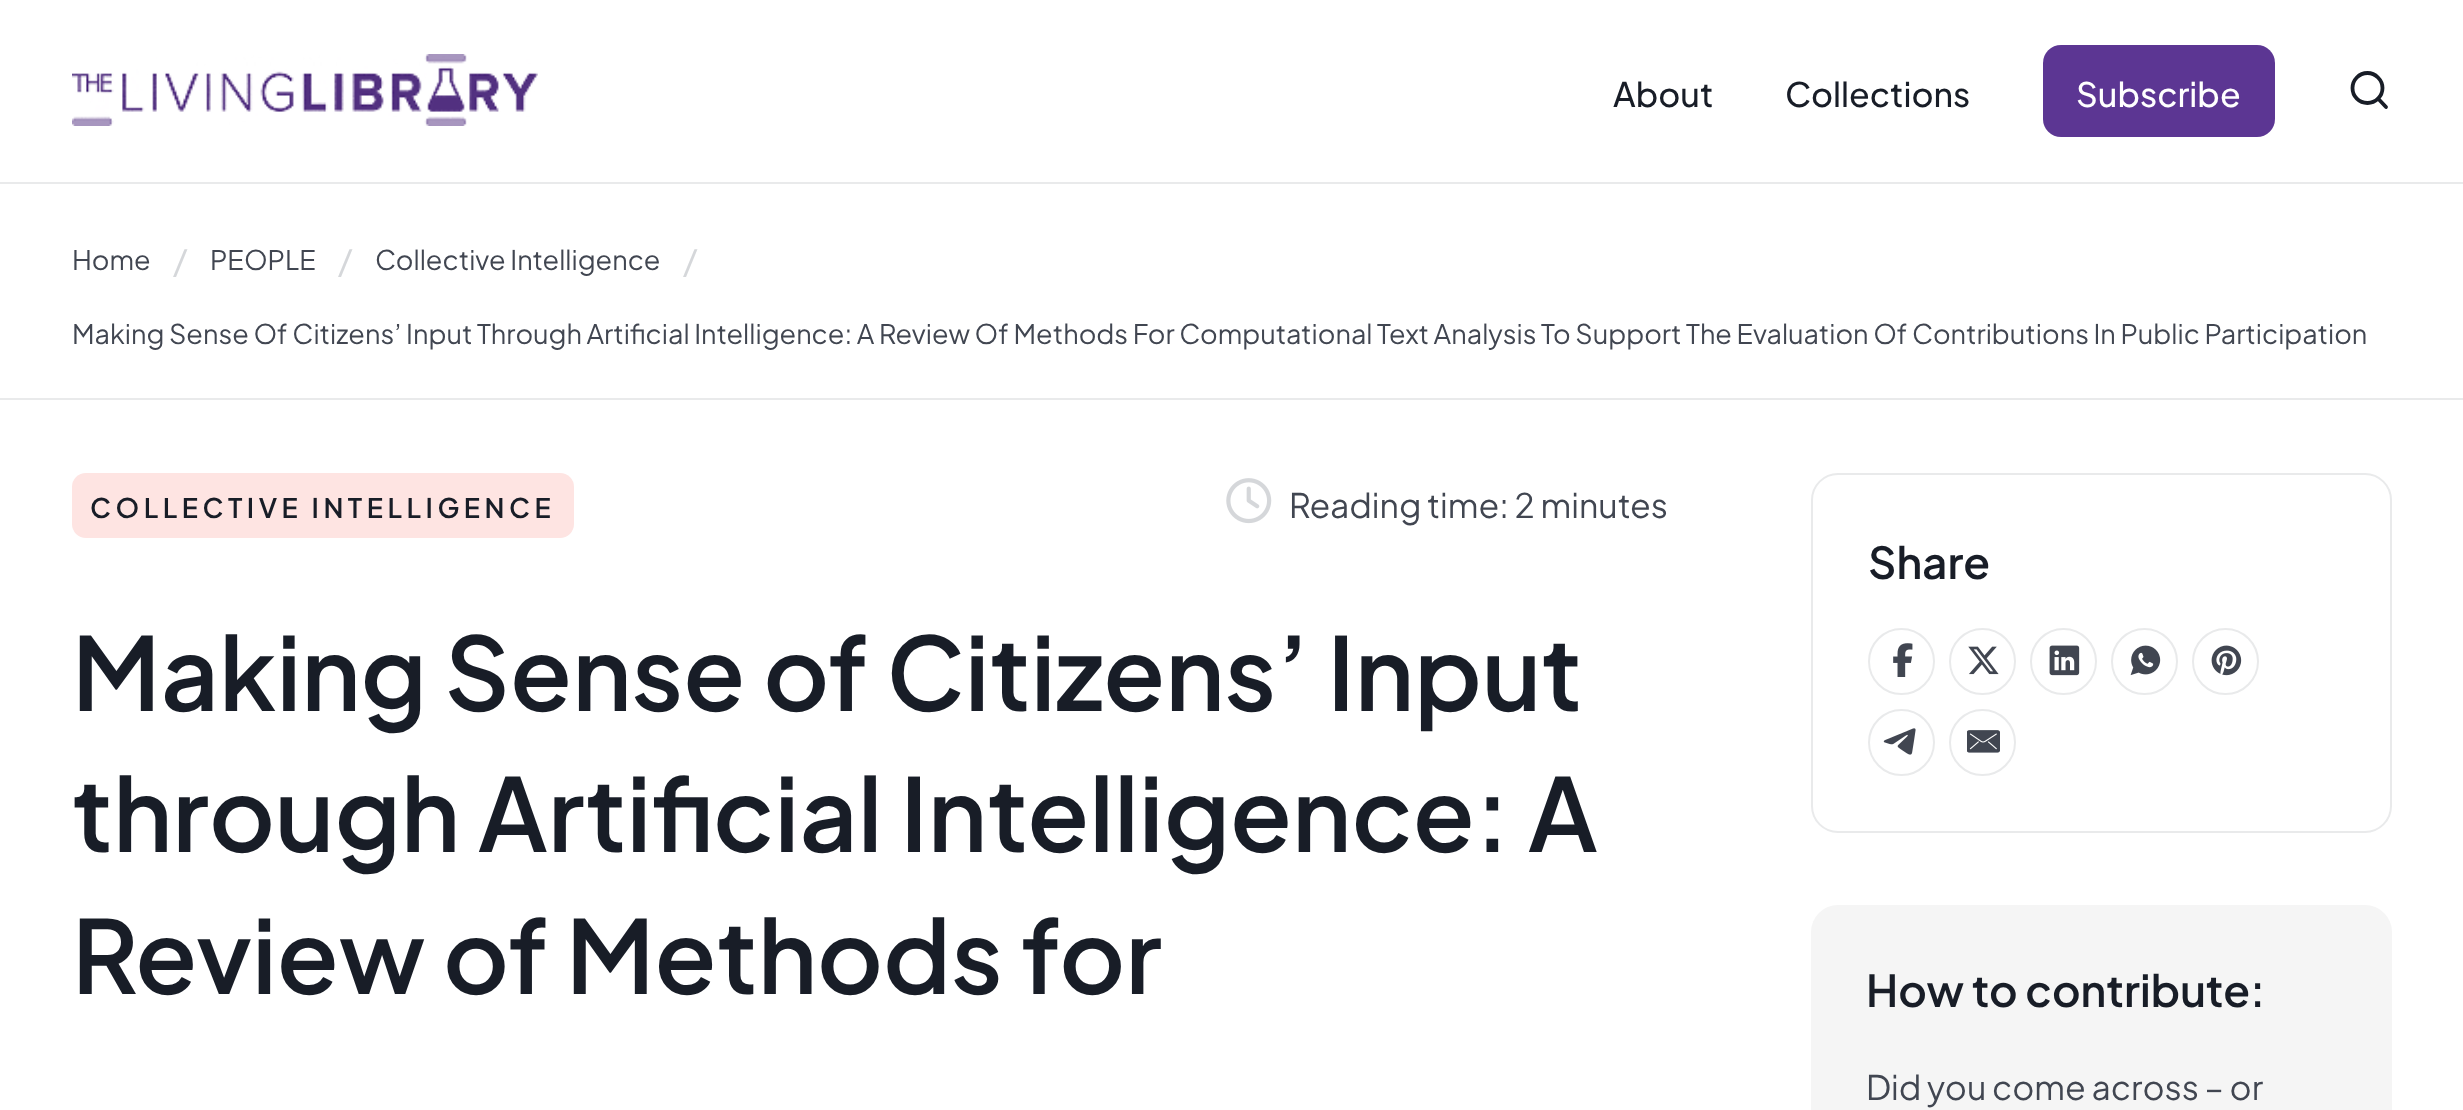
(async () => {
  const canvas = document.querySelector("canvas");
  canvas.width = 2463;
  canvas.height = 1110;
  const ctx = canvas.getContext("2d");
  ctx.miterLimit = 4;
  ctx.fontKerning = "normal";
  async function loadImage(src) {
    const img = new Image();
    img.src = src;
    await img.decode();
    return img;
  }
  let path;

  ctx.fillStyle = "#ffffff";
  ctx.fillRect(0, 0, 2463, 1110);
  ctx.fillStyle = "#e9eaeb";
  ctx.fillRect(0, 182, 2463, 2);
  ctx.drawImage(await loadImage("img/1.png"), 72, 54, 466, 72);
  ctx.fillStyle = "#5c3693";
  ctx.beginPath();
  ctx.roundRect(2043, 45, 232, 92, 18);
  ctx.fill();
  path = new Path2D("M2386 107L2378 98.5M2382.5 88C2382.5 96.5 2375.5 103 2367.5 103C2359 103 2352.5 96.5 2352.5 88C2352.5 80 2359 73 2367.5 73C2375.5 73 2382.5 80 2382.5 88Z");
  ctx.strokeStyle = "#181d27";
  ctx.lineWidth = 3.8;
  ctx.lineCap = "round";
  ctx.lineJoin = "round";
  ctx.stroke(path);
  ctx.fillStyle = "#e9eaeb";
  ctx.fillRect(0, 398, 2463, 2);
  ctx.fillStyle = "#fee4e2";
  ctx.beginPath();
  ctx.roundRect(72, 473, 502, 65, 14);
  ctx.fill();
  ctx.drawImage(await loadImage("img/2.png"), 1226, 478, 46, 46);
  ctx.beginPath();
  ctx.roundRect(1812, 474, 579, 358, 26);
  ctx.strokeStyle = "#e9eaeb";
  ctx.lineWidth = 2;
  ctx.lineJoin = "miter";
  ctx.stroke();
  ctx.beginPath();
  ctx.arc(1901.5, 661.5, 32.5, 0, Math.PI * 2);
  ctx.stroke();
  ctx.drawImage(await loadImage("img/3.png"), 1893, 643, 20, 34);
  ctx.beginPath();
  ctx.arc(1982.5, 661.5, 32.5, 0, Math.PI * 2);
  ctx.stroke();
  ctx.drawImage(await loadImage("img/4.png"), 1968, 646, 31, 29);
  ctx.beginPath();
  ctx.arc(2063.5, 661.5, 32.5, 0, Math.PI * 2);
  ctx.stroke();
  ctx.drawImage(await loadImage("img/5.png"), 2049, 645, 31, 31);
  ctx.beginPath();
  ctx.arc(2144.5, 661.5, 32.5, 0, Math.PI * 2);
  ctx.stroke();
  ctx.drawImage(await loadImage("img/6.png"), 2130, 645, 31, 31);
  ctx.beginPath();
  ctx.arc(2225.5, 661.5, 32.5, 0, Math.PI * 2);
  ctx.stroke();
  ctx.drawImage(await loadImage("img/7.png"), 2211, 645, 31, 31);
  ctx.beginPath();
  ctx.arc(1901.5, 742.5, 32.5, 0, Math.PI * 2);
  ctx.stroke();
  ctx.drawImage(await loadImage("img/8.png"), 1883, 728, 33, 27);
  ctx.beginPath();
  ctx.arc(1982.5, 742.5, 32.5, 0, Math.PI * 2);
  ctx.stroke();
  ctx.drawImage(await loadImage("img/9.png"), 1967, 730, 33, 23);
  ctx.fillStyle = "#f5f5f5";
  ctx.beginPath();
  ctx.roundRect(1811, 905, 581, 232, 27);
  ctx.fill();
  ctx.font = "500 33.75px Plus Jakarta Sans";
  ctx.fillStyle = "#181d27";
  ctx.fillText("About", 1613, 107);
  ctx.fillText("Collections", 1785, 107);
  ctx.fillStyle = "#ffffff";
  ctx.fillText("Subscribe", 2076, 107);
  ctx.font = "27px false";
  ctx.fillStyle = "#414651";
  ctx.fillText("Home", 72, 270);
  ctx.font = "33.75px false";
  ctx.fillStyle = "#d5d7da";
  ctx.fillText("/", 173, 273);
  ctx.font = "27px false";
  ctx.fillStyle = "#414651";
  ctx.fillText("PEOPLE", 210, 270);
  ctx.font = "33.75px false";
  ctx.fillStyle = "#d5d7da";
  ctx.fillText("/", 338, 273);
  ctx.font = "27px false";
  ctx.fillStyle = "#414651";
  ctx.fillText("Collective Intelligence", 375, 270);
  ctx.font = "33.75px false";
  ctx.fillStyle = "#d5d7da";
  ctx.fillText("/", 683, 273);
  ctx.font = "27px false";
  ctx.fillStyle = "#414651";
  ctx.fillText("Making Sense Of Citizens’ Input Through Artificial Intelligence: A Review Of Methods For Computational Text Analysis To Support The Evaluation Of Contributions In Public Participation", 72, 344);
  ctx.letterSpacing = "4.5px";
  ctx.font = "600 27px Plus Jakarta Sans";
  ctx.fillStyle = "#181d27";
  ctx.fillText("COLLECTIVE INTELLIGENCE", 90, 518);
  ctx.letterSpacing = "0px";
  ctx.font = "33.75px false";
  ctx.fillStyle = "#414651";
  ctx.fillText("Reading time: 2 minutes", 1289, 518);
  ctx.font = "600 101.25px Plus Jakarta Sans";
  ctx.fillStyle = "#181d27";
  for (const [text, x, y] of [
    ["Making Sense of Citizens’ Input", 72, 711],
    ["through Artificial Intelligence: A", 72, 852],
    ["Review of Methods for", 72, 994],
  ]) {
    ctx.fillText(text, x, y);
  }
  ctx.font = "600 43.9px Plus Jakarta Sans";
  ctx.fillText("Share", 1868, 579);
  ctx.fillText("How to contribute:", 1866, 1007);
  ctx.font = "33.75px false";
  ctx.fillStyle = "#414651";
  ctx.fillText("Did you come across – or", 1866, 1100);
})();
